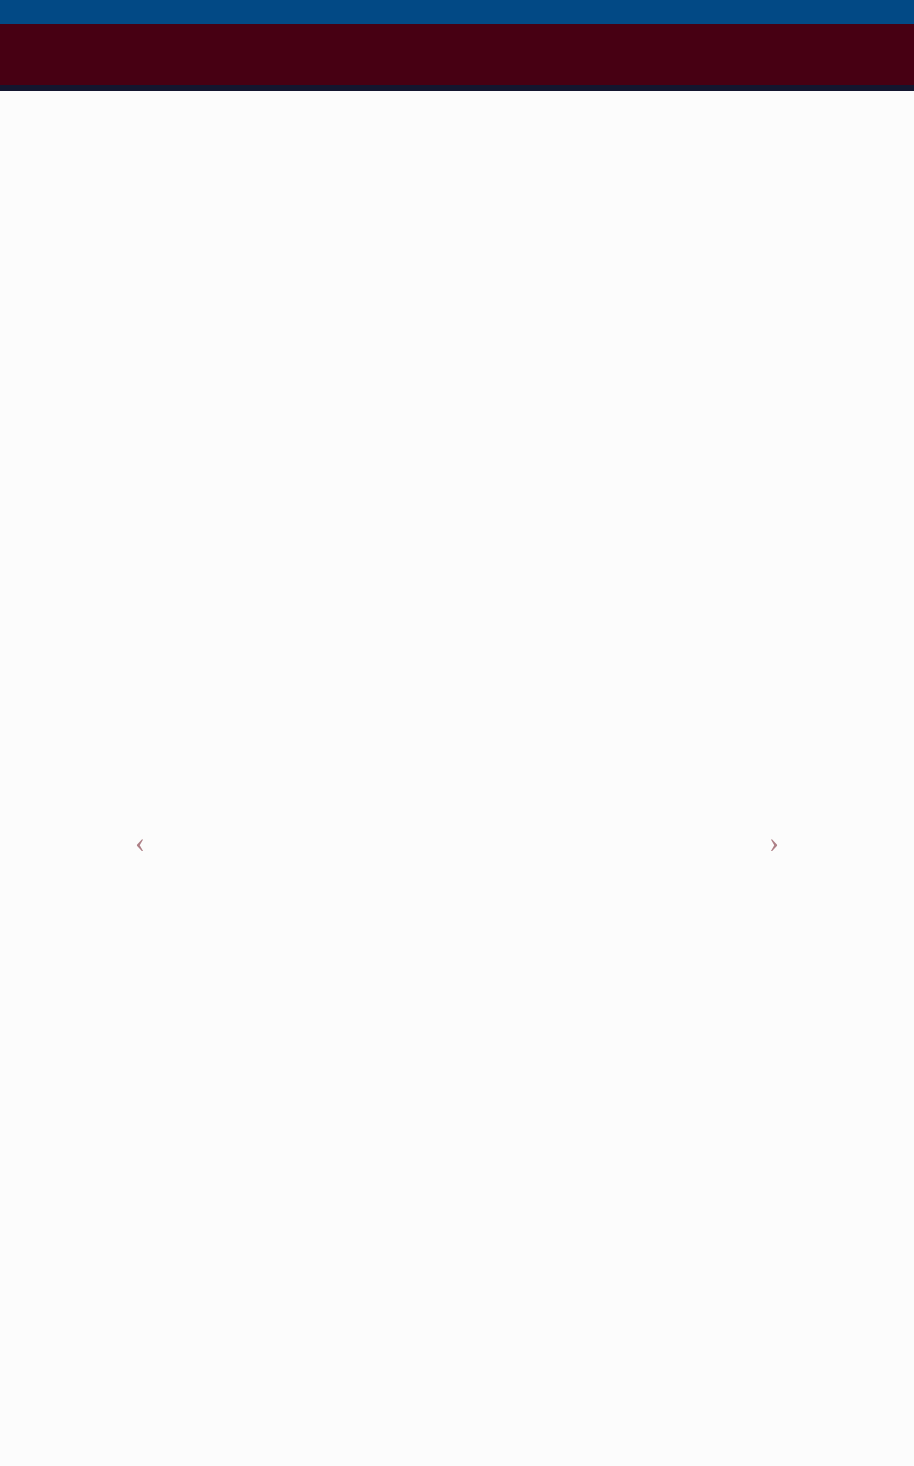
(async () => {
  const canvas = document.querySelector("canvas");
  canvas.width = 914;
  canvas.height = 1466;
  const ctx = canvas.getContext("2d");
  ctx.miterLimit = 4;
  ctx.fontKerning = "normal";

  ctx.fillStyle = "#fcfcfc";
  ctx.fillRect(0, 0, 914, 1466);
  for (const [x, y, w, h, color] of [
    [0, 85, 914, 6, "#13162f"],
    [0, 0, 914, 24, "#024985"],
    [0, 24, 914, 61, "#470013"],
  ]) {
    ctx.fillStyle = color;
    ctx.fillRect(x, y, w, h);
  }
  ctx.font = "30px Liberation Serif";
  ctx.fillStyle = "#ae8087";
  ctx.fillText("‹", 135, 852);
  ctx.fillText("›", 769, 852);
})();
